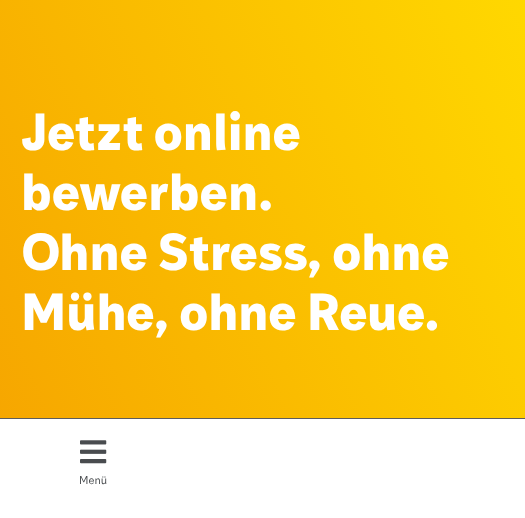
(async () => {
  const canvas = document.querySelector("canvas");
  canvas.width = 525;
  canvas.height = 518;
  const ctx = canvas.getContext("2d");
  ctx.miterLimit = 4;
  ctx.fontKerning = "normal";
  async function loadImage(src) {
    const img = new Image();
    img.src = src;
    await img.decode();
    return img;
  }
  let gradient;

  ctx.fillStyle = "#ffffff";
  ctx.fillRect(0, 0, 525, 518);
  gradient = ctx.createLinearGradient(-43, 362, 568, 102);
  gradient.addColorStop(0, "#f6a500");
  gradient.addColorStop(1, "#ffd800");
  ctx.fillStyle = gradient;
  ctx.fillRect(0, 0, 525, 418);
  ctx.fillStyle = "#5d5d5d";
  ctx.fillRect(0, 418, 525, 1);
  ctx.drawImage(await loadImage("img/1.png"), 80, 440, 27, 24);
  ctx.font = "bold 50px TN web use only";
  ctx.fillStyle = "#ffffff";
  for (const [text, x, y] of [
    ["Jetzt online", 21, 150],
    ["bewerben.", 21, 210],
    ["Ohne Stress, ohne", 21, 270],
    ["Mühe, ohne Reue.", 21, 330],
  ]) {
    ctx.fillText(text, x, y);
  }
  ctx.font = "11px TN web use only";
  ctx.fillStyle = "#494c4f";
  ctx.fillText("Menü", 79, 484);
})();
